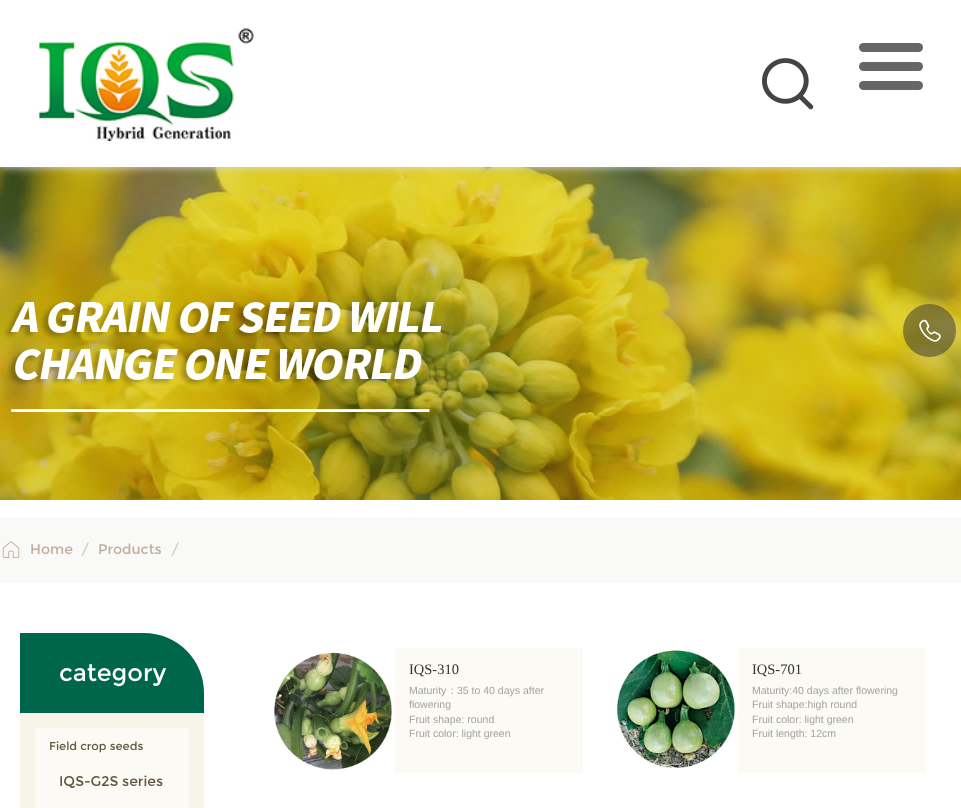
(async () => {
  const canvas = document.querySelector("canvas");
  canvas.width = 961;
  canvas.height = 808;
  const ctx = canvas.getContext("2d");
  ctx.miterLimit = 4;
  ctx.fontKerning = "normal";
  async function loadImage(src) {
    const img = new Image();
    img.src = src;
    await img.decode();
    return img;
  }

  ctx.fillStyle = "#ffffff";
  ctx.fillRect(0, 0, 961, 808);
  ctx.drawImage(await loadImage("img/1.png"), 0, 167, 961, 333);
  ctx.fillStyle = "#dddddd";
  ctx.filter = "blur(5px)";
  ctx.beginPath();
  ctx.rect(0, 0, 961, 167);
  ctx.fill();
  ctx.filter = "none";
  ctx.fillStyle = "#ffffff";
  ctx.fillRect(0, 0, 961, 167);
  ctx.drawImage(await loadImage("img/2.png"), 38, 28, 216, 113);
  ctx.drawImage(await loadImage("img/3.png"), 762, 58, 52, 52);
  ctx.fillStyle = "#666666";
  ctx.beginPath();
  ctx.roundRect(859, 62, 64, 9, 4.5);
  ctx.fill();
  ctx.beginPath();
  ctx.roundRect(859, 43, 64, 9, 4.5);
  ctx.fill();
  ctx.beginPath();
  ctx.roundRect(859, 81, 64, 9, 4.5);
  ctx.fill();
  ctx.fillStyle = "rgba(50, 50, 50, 0.5)";
  ctx.beginPath();
  ctx.arc(929.5, 330.5, 26.5, 0, Math.PI * 2);
  ctx.fill();
  ctx.drawImage(await loadImage("img/4.png"), 919, 319, 22, 23);
  ctx.drawImage(await loadImage("img/5.png"), 4, 302, 438, 110);
  ctx.fillStyle = "#f9f9f7";
  ctx.fillRect(0, 517, 961, 66);
  ctx.drawImage(await loadImage("img/6.png"), 2, 541, 18, 17);
  ctx.fillStyle = "#00664b";
  ctx.beginPath();
  ctx.roundRect(20, 633, 184, 80, [0, 60, 0, 0]);
  ctx.fill();
  for (const [x, y, w, h, color] of [
    [20, 713, 184, 95, "#f7f4ea"],
    [35, 728, 154, 80, "#fbfaf5"],
    [395, 648, 188, 125, "#fbfaf5"],
  ]) {
    ctx.fillStyle = color;
    ctx.fillRect(x, y, w, h);
  }
  ctx.drawImage(await loadImage("img/7.png"), 269, 648, 126, 125);
  ctx.fillRect(738, 648, 188, 125);
  ctx.drawImage(await loadImage("img/8.png"), 613, 648, 125, 125);
  ctx.font = "14px Montserrat";
  ctx.fillStyle = "#c1ae9d";
  ctx.fillText("Home", 30, 554);
  ctx.fillStyle = "#cccccc";
  ctx.fillText("/", 81, 554);
  ctx.fillStyle = "#c1ae9d";
  ctx.fillText("Products", 98, 554);
  ctx.fillStyle = "#cccccc";
  ctx.fillText("/", 171, 554);
  ctx.font = "24px Montserrat";
  ctx.fillStyle = "#ffffff";
  ctx.fillText("category", 59, 681);
  ctx.font = "11.5px Montserrat";
  ctx.fillStyle = "#60583f";
  ctx.fillText("Field crop seeds", 49, 750);
  ctx.font = "14px Montserrat";
  ctx.fillText("IQS-G2S series", 59, 786);
  ctx.font = "14.5px Liberation Serif";
  ctx.fillStyle = "#333333";
  ctx.fillText("IQS-310", 409, 674);
  ctx.font = "10.5px Liberation Sans";
  ctx.fillStyle = "#a3a3a3";
  ctx.fillText("Maturity", 409, 694);
  ctx.font = "500 10.5px WenQuanYi Zen Hei";
  ctx.fillText("：", 447, 694);
  ctx.font = "10.5px Liberation Sans";
  for (const [text, x, y] of [
    ["35 to 40 days after", 457, 694],
    ["flowering", 409, 708],
    ["Fruit shape: round", 409, 723],
    ["Fruit color: light green", 409, 737],
  ]) {
    ctx.fillText(text, x, y);
  }
  ctx.font = "14.5px Liberation Serif";
  ctx.fillStyle = "#333333";
  ctx.fillText("IQS-701", 752, 674);
  ctx.font = "10.5px Liberation Sans";
  ctx.fillStyle = "#a3a3a3";
  for (const [text, x, y] of [
    ["Maturity:40 days after flowering", 752, 694],
    ["Fruit shape:high round", 752, 708],
    ["Fruit color: light green", 752, 723],
    ["Fruit length: 12cm", 752, 737],
  ]) {
    ctx.fillText(text, x, y);
  }
})();
